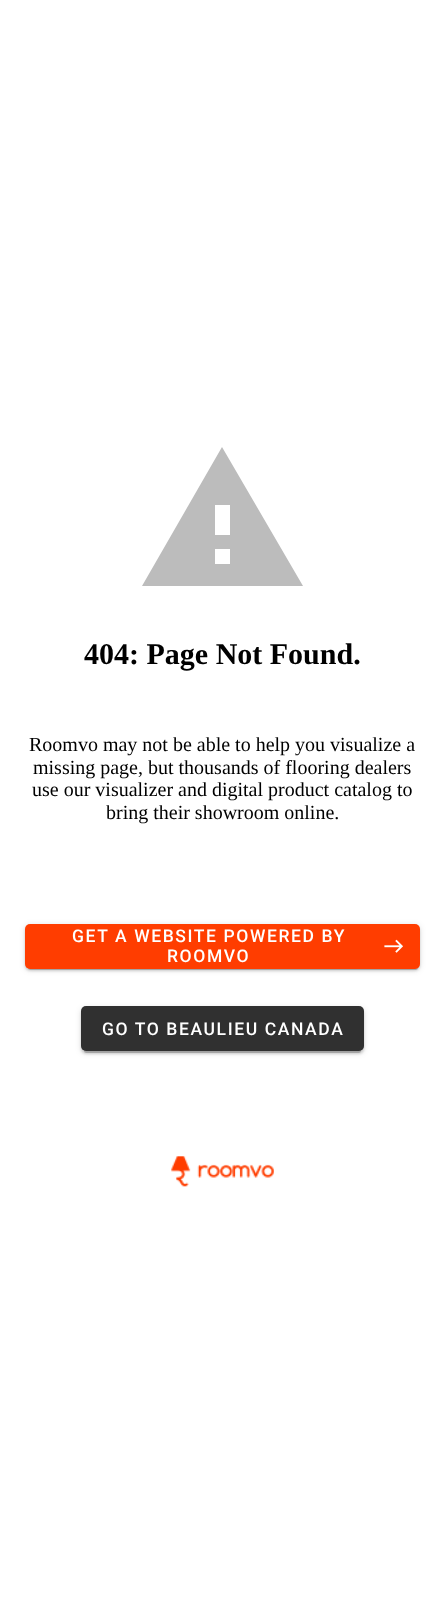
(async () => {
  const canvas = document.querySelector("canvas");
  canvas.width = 445;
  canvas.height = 1608;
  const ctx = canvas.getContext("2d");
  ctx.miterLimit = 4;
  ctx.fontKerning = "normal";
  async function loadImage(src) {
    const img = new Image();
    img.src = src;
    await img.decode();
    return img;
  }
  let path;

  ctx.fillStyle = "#ffffff";
  ctx.fillRect(0, 0, 445, 1608);
  ctx.fillStyle = "#bcbcbc";
  path = new Path2D("M230 535V505H215V535ZM230 564V549H215V564ZM142 586L222 447L303 586Z");
  ctx.fill(path);
  ctx.fillStyle = "rgba(0, 0, 0, 0.12)";
  ctx.filter = "blur(3px)";
  ctx.beginPath();
  ctx.roundRect(25, 925, 395, 45, 5);
  ctx.fill();
  ctx.filter = "none";
  ctx.fillStyle = "rgba(0, 0, 0, 0.14)";
  ctx.filter = "blur(1px)";
  ctx.beginPath();
  ctx.roundRect(25, 926, 395, 45, 5);
  ctx.fill();
  ctx.filter = "none";
  ctx.fillStyle = "rgba(0, 0, 0, 0.2)";
  ctx.filter = "blur(0.5px)";
  ctx.beginPath();
  ctx.roundRect(28, 930, 390, 40, 2.5);
  ctx.fill();
  ctx.filter = "none";
  ctx.fillStyle = "#ff3d00";
  ctx.beginPath();
  ctx.roundRect(25, 924, 395, 45, 5);
  ctx.fill();
  ctx.drawImage(await loadImage("img/1.png"), 384, 939, 19, 14);
  ctx.fillStyle = "rgba(0, 0, 0, 0.12)";
  ctx.filter = "blur(3px)";
  ctx.beginPath();
  ctx.roundRect(81, 1008, 283, 45, 5);
  ctx.fill();
  ctx.filter = "none";
  ctx.fillStyle = "rgba(0, 0, 0, 0.14)";
  ctx.filter = "blur(1px)";
  ctx.beginPath();
  ctx.roundRect(81, 1009, 283, 45, 5);
  ctx.fill();
  ctx.filter = "none";
  ctx.fillStyle = "rgba(0, 0, 0, 0.2)";
  ctx.filter = "blur(0.5px)";
  ctx.beginPath();
  ctx.roundRect(84, 1013, 277, 40, 2.5);
  ctx.fill();
  ctx.filter = "none";
  ctx.fillStyle = "#303030";
  ctx.beginPath();
  ctx.roundRect(81, 1006, 283, 45, 5);
  ctx.fill();
  ctx.drawImage(await loadImage("img/2.png"), 171, 1156, 103, 31);
  ctx.font = "bold 30px Liberation Serif";
  ctx.fillStyle = "#000000";
  ctx.fillText("404: Page Not Found.", 84, 664);
  ctx.font = "20px Liberation Serif";
  for (const [text, x, y] of [
    ["Roomvo may not be able to help you visualize a", 29, 751],
    ["missing page, but thousands of flooring dealers", 33, 774],
    ["use our visualizer and digital product catalog to", 32, 796],
    ["bring their showroom online.", 106, 819],
  ]) {
    ctx.fillText(text, x, y);
  }
  ctx.letterSpacing = "1.6px";
  ctx.font = "500 17.5px Roboto";
  ctx.fillStyle = "#ffffff";
  for (const [text, x, y] of [
    ["GET A WEBSITE POWERED BY", 72, 942],
    ["ROOMVO", 167, 962],
    ["GO TO BEAULIEU CANADA", 102, 1035],
  ]) {
    ctx.fillText(text, x, y);
  }
})();
